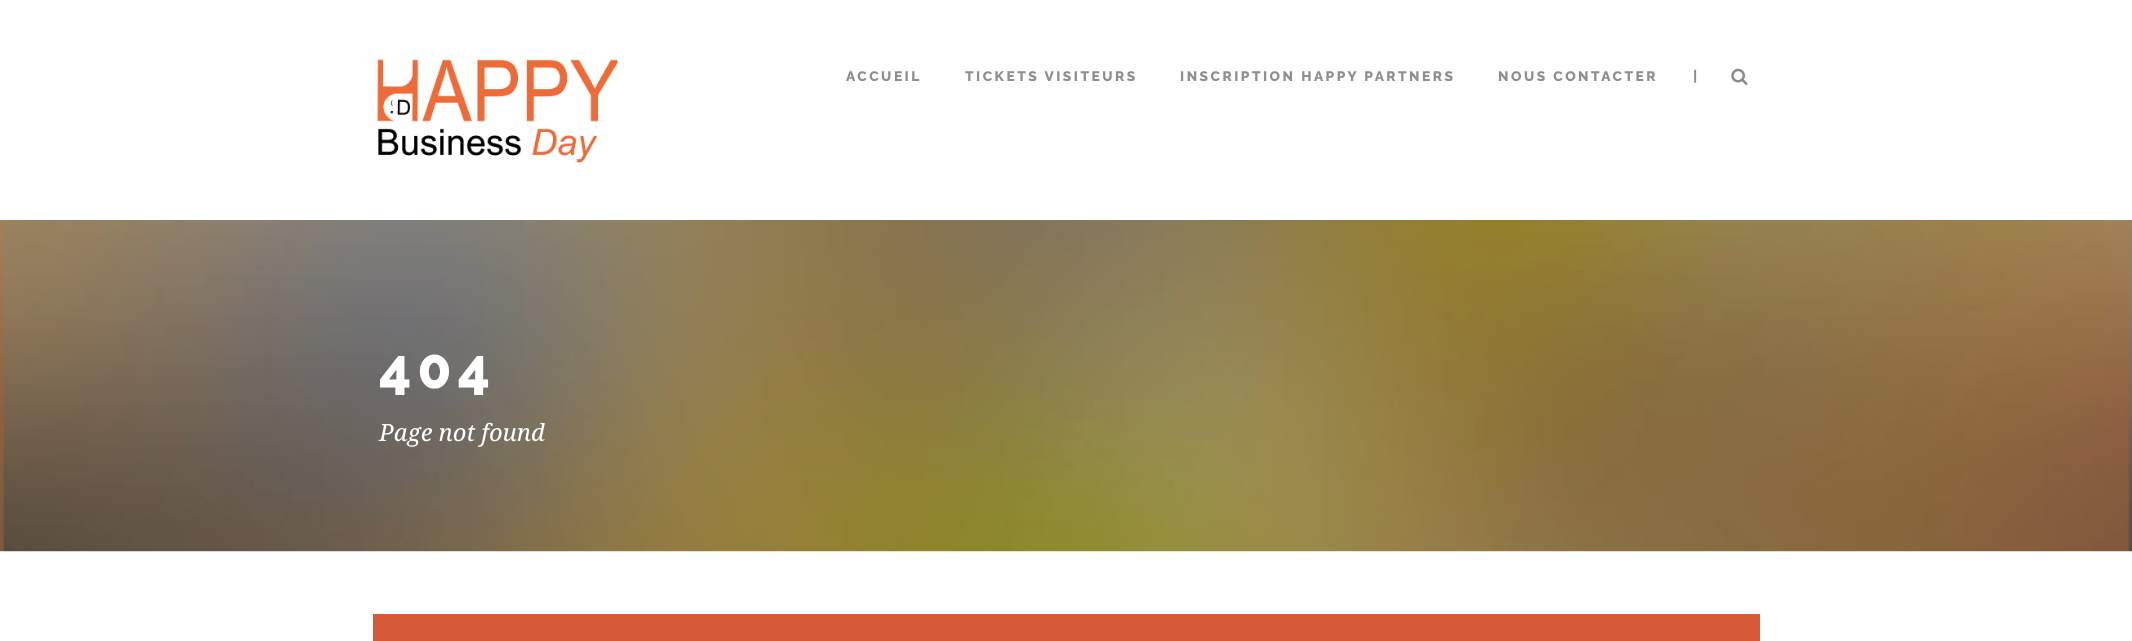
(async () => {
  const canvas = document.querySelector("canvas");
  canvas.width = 2132;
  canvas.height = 641;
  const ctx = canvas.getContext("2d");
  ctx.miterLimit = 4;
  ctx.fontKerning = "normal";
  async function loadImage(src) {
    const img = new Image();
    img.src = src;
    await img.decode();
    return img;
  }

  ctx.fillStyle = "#ffffff";
  ctx.fillRect(0, 0, 2132, 641);
  ctx.drawImage(await loadImage("img/1.png"), 377, 59, 241, 104);
  ctx.drawImage(await loadImage("img/2.png"), 1731, 68, 17, 17);
  ctx.drawImage(await loadImage("img/3.png"), 0, 220, 2132, 332);
  ctx.fillStyle = "#d65938";
  ctx.fillRect(373, 614, 1387, 27);
  ctx.letterSpacing = "2.5px";
  ctx.font = "800 13.75px Raleway";
  ctx.fillStyle = "#8e8e8e";
  for (const [text, x, y] of [
    ["ACCUEIL", 846, 81],
    ["TICKETS VISITEURS", 965, 81],
    ["INSCRIPTION HAPPY PARTNERS", 1180, 81],
    ["NOUS CONTACTER", 1498, 81],
  ]) {
    ctx.fillText(text, x, y);
  }
  ctx.letterSpacing = "0px";
  ctx.font = "bold 13.75px Montserrat";
  ctx.fillText("|", 1693, 80);
  ctx.letterSpacing = "6px";
  ctx.font = "800 56px Raleway";
  ctx.fillStyle = "#ffffff";
  ctx.fillText("404", 379, 388);
  ctx.letterSpacing = "0px";
  ctx.font = "italic 23.75px Droid Serif";
  ctx.fillText("Page not found", 379, 441);
})();
